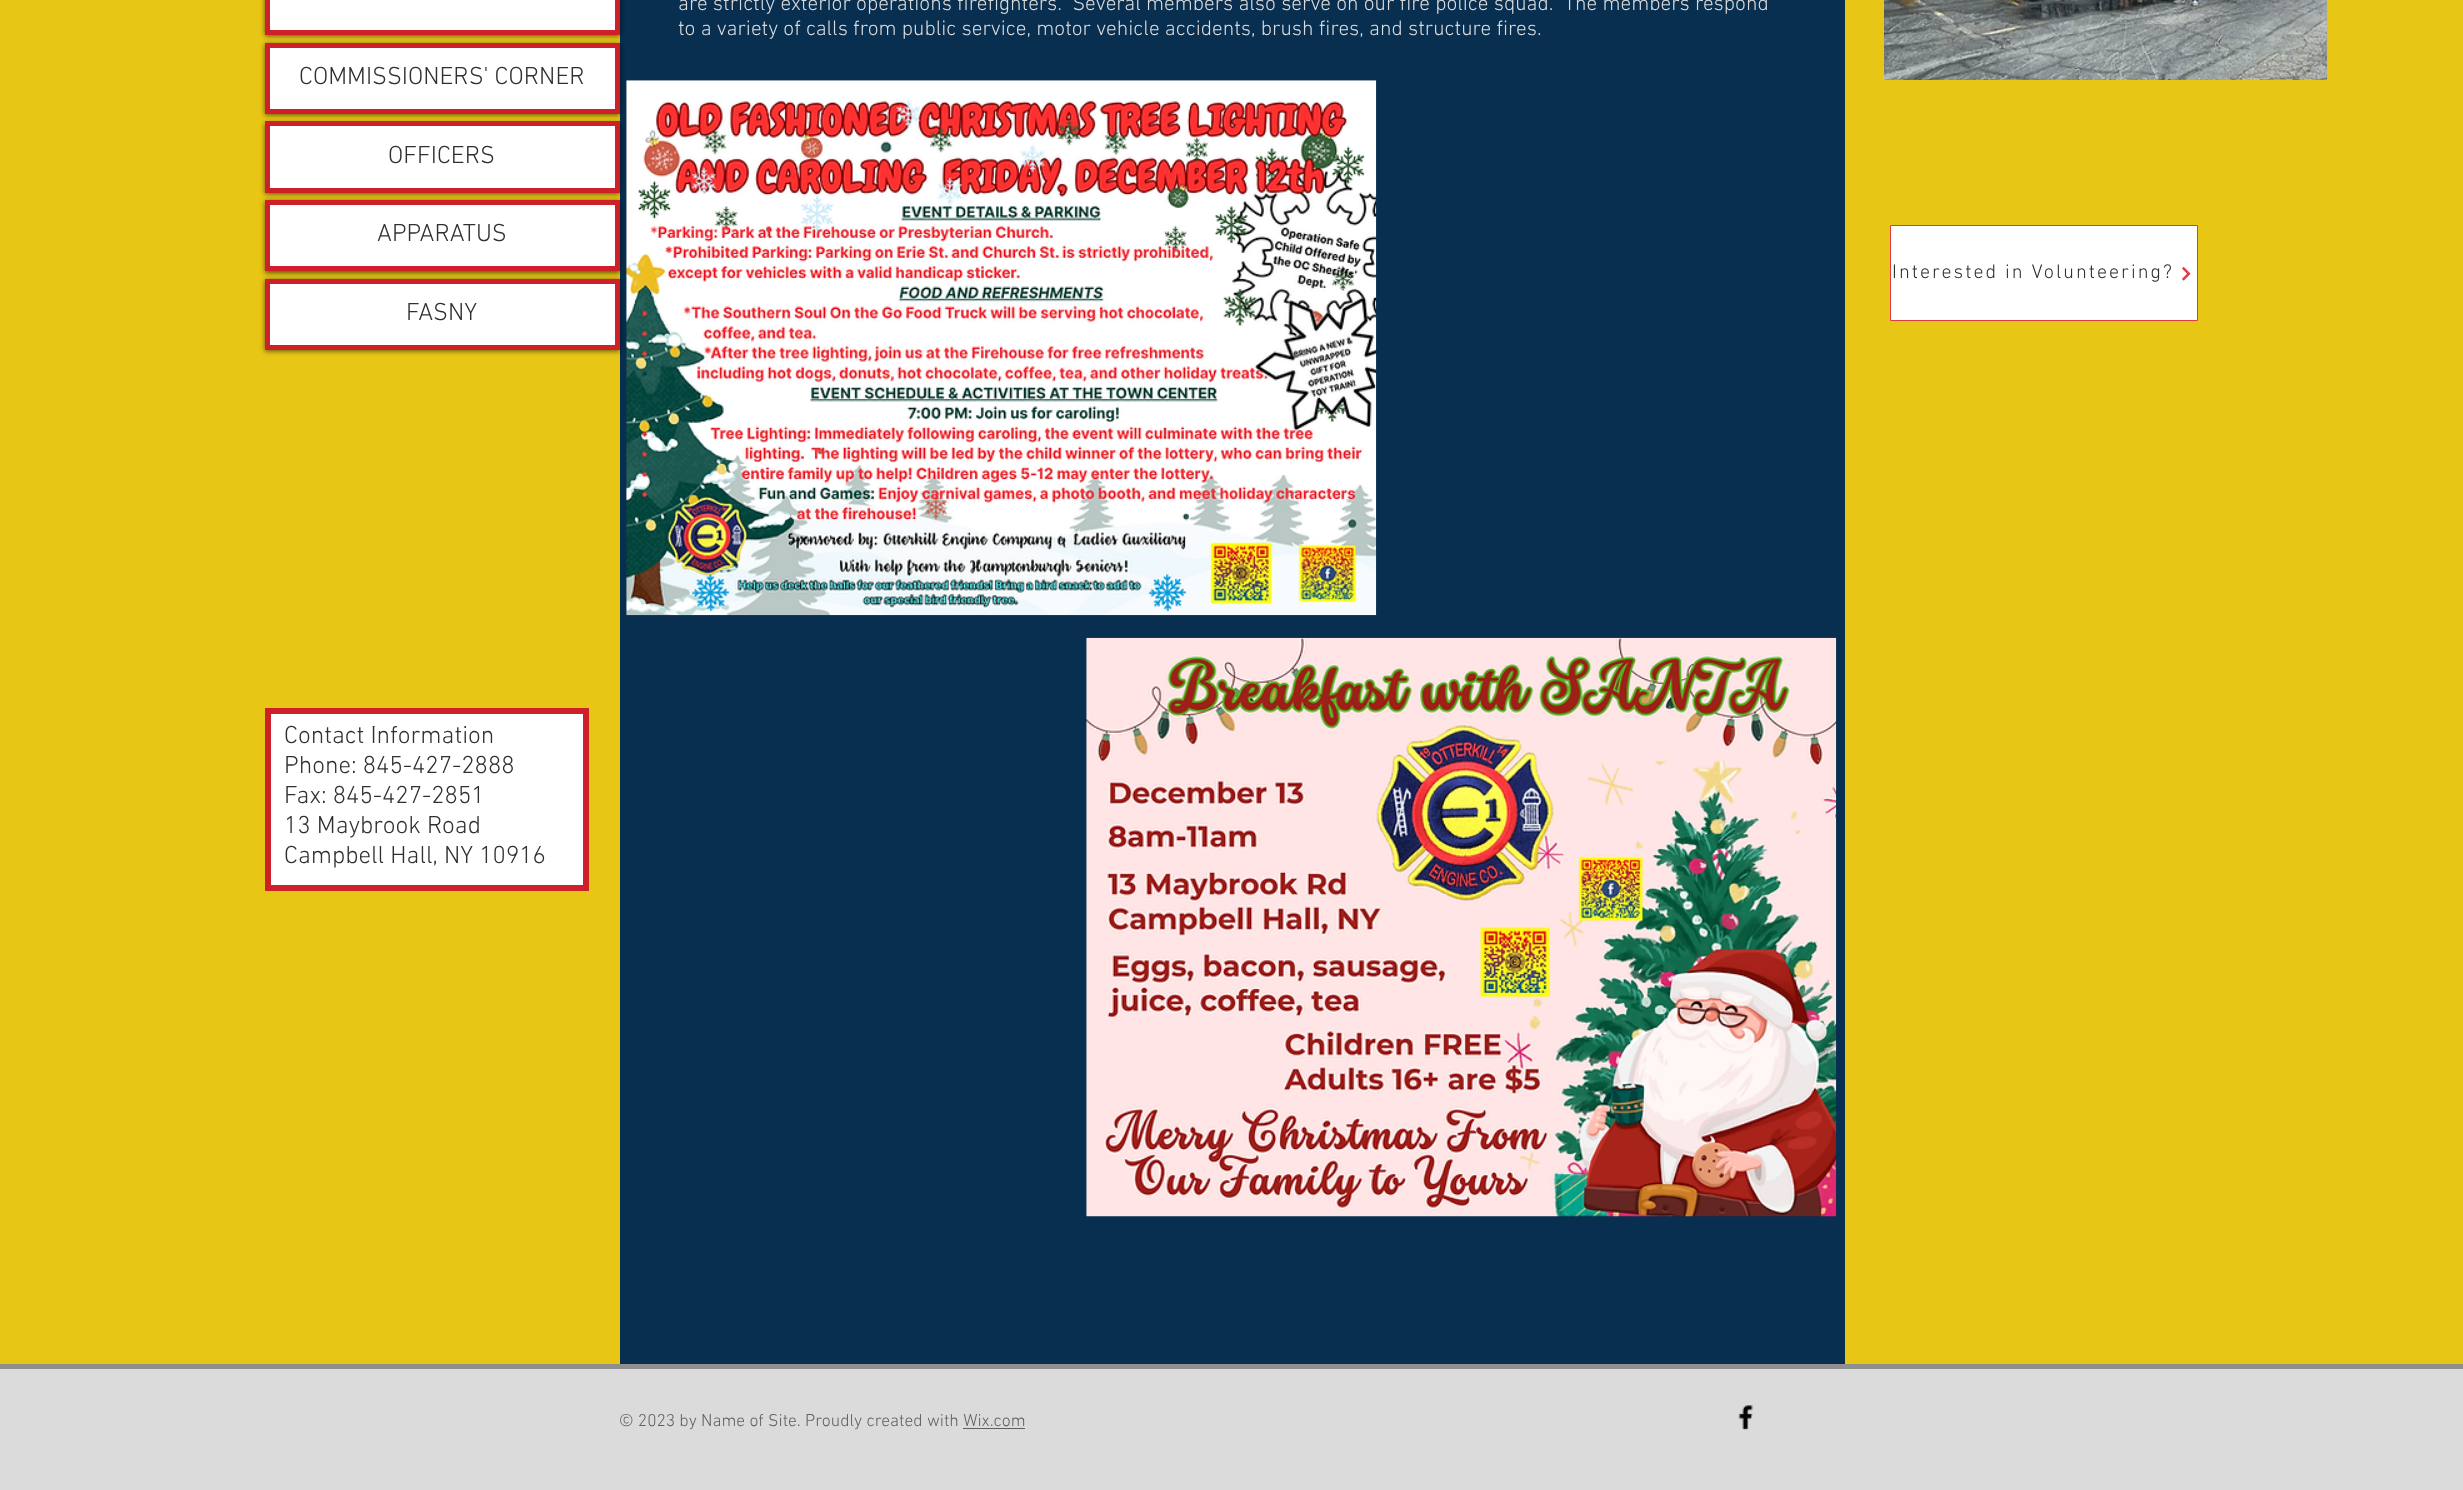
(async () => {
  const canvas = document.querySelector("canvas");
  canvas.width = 2463;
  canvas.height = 1490;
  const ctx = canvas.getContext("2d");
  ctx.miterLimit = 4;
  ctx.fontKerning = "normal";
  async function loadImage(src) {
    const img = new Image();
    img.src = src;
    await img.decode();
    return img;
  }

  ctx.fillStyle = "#e8c615";
  ctx.fillRect(0, 0, 2463, 1490);
  ctx.drawImage(await loadImage("img/1.png"), 1884, 0, 444, 80);
  ctx.fillStyle = "#082e50";
  ctx.fillRect(620, 0, 1225, 1364);
  ctx.fillStyle = "rgba(0, 0, 0, 0.6)";
  ctx.filter = "blur(2.5px)";
  ctx.beginPath();
  ctx.rect(265, -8, 355, 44);
  ctx.fill();
  ctx.filter = "none";
  ctx.fillStyle = "#ffffff";
  ctx.beginPath();
  ctx.rect(267.5, -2.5, 350, 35);
  ctx.fill();
  ctx.strokeStyle = "#ce2029";
  ctx.lineWidth = 5;
  ctx.stroke();
  ctx.fillStyle = "rgba(0, 0, 0, 0.6)";
  ctx.filter = "blur(2.5px)";
  ctx.beginPath();
  ctx.rect(265, 44, 355, 71);
  ctx.fill();
  ctx.filter = "none";
  ctx.fillStyle = "#ffffff";
  ctx.beginPath();
  ctx.rect(267.5, 45.5, 350, 66);
  ctx.fill();
  ctx.stroke();
  ctx.fillStyle = "rgba(0, 0, 0, 0.6)";
  ctx.filter = "blur(2.5px)";
  ctx.beginPath();
  ctx.rect(265, 123, 355, 71);
  ctx.fill();
  ctx.filter = "none";
  ctx.fillStyle = "#ffffff";
  ctx.beginPath();
  ctx.rect(267.5, 123.5, 350, 67);
  ctx.fill();
  ctx.stroke();
  ctx.fillStyle = "rgba(0, 0, 0, 0.6)";
  ctx.filter = "blur(2.5px)";
  ctx.beginPath();
  ctx.rect(265, 201, 355, 72);
  ctx.fill();
  ctx.filter = "none";
  ctx.fillStyle = "#ffffff";
  ctx.beginPath();
  ctx.rect(267.5, 202.5, 350, 66);
  ctx.fill();
  ctx.stroke();
  ctx.fillStyle = "rgba(0, 0, 0, 0.6)";
  ctx.filter = "blur(2.5px)";
  ctx.beginPath();
  ctx.rect(265, 280, 355, 71);
  ctx.fill();
  ctx.filter = "none";
  ctx.fillStyle = "#ffffff";
  ctx.beginPath();
  ctx.rect(267.5, 281.5, 350, 66);
  ctx.fill();
  ctx.stroke();
  ctx.drawImage(await loadImage("img/2.png"), 626, 80, 751, 536);
  ctx.beginPath();
  ctx.rect(1890.5, 225.5, 307, 95);
  ctx.fill();
  ctx.strokeStyle = "#e13a44";
  ctx.lineWidth = 1;
  ctx.stroke();
  ctx.drawImage(await loadImage("img/3.png"), 2182, 266, 9, 15);
  ctx.beginPath();
  ctx.rect(268, 711, 318, 177);
  ctx.fill();
  ctx.strokeStyle = "#ce2029";
  ctx.lineWidth = 6;
  ctx.stroke();
  ctx.drawImage(await loadImage("img/4.png"), 1086, 637, 751, 580);
  for (const [x, y, w, h, color] of [
    [0, 1369, 2463, 121, "#dbdbdb"],
    [0, 1364, 2463, 5, "#8f8f8f"],
    [963, 1428, 62, 1, "#606060"],
  ]) {
    ctx.fillStyle = color;
    ctx.fillRect(x, y, w, h);
  }
  ctx.drawImage(await loadImage("img/5.png"), 1738, 1405, 15, 25);
  ctx.font = "300 21.25px 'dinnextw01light'";
  ctx.fillStyle = "#dbdbdb";
  ctx.fillText("are strictly exterior operations firefighters.  Several members also serve on our fire police squad.  The members respond", 678, 10);
  ctx.fillText("to a variety of calls from public service, motor vehicle accidents, brush fires, and structure fires.", 678, 35);
  ctx.font = "300 25px 'dinnextw01light'";
  ctx.fillStyle = "#303030";
  for (const [text, x, y] of [
    ["COMMISSIONERS' CORNER", 299, 84],
    ["OFFICERS", 388, 163],
    ["APPARATUS", 377, 241],
    ["FASNY", 406, 320],
  ]) {
    ctx.fillText(text, x, y);
  }
  ctx.letterSpacing = "2px";
  ctx.font = "300 20px 'dinnextw01light'";
  ctx.fillText("Interested in Volunteering?", 1892, 278);
  ctx.letterSpacing = "0px";
  ctx.font = "300 25px 'dinnextw01light'";
  for (const [text, x, y] of [
    ["Contact Information", 284, 743],
    ["Phone: 845-427-2888", 284, 773],
    ["Fax: 845-427-2851", 284, 803],
    ["13 Maybrook Road", 284, 833],
    ["Campbell Hall, NY 10916", 284, 863],
  ]) {
    ctx.fillText(text, x, y);
  }
  ctx.font = "300 17.5px 'dinnextw01light'";
  ctx.fillStyle = "#606060";
  ctx.fillText("© 2023 by Name of Site. Proudly created with Wix.com", 619, 1426);
})();
